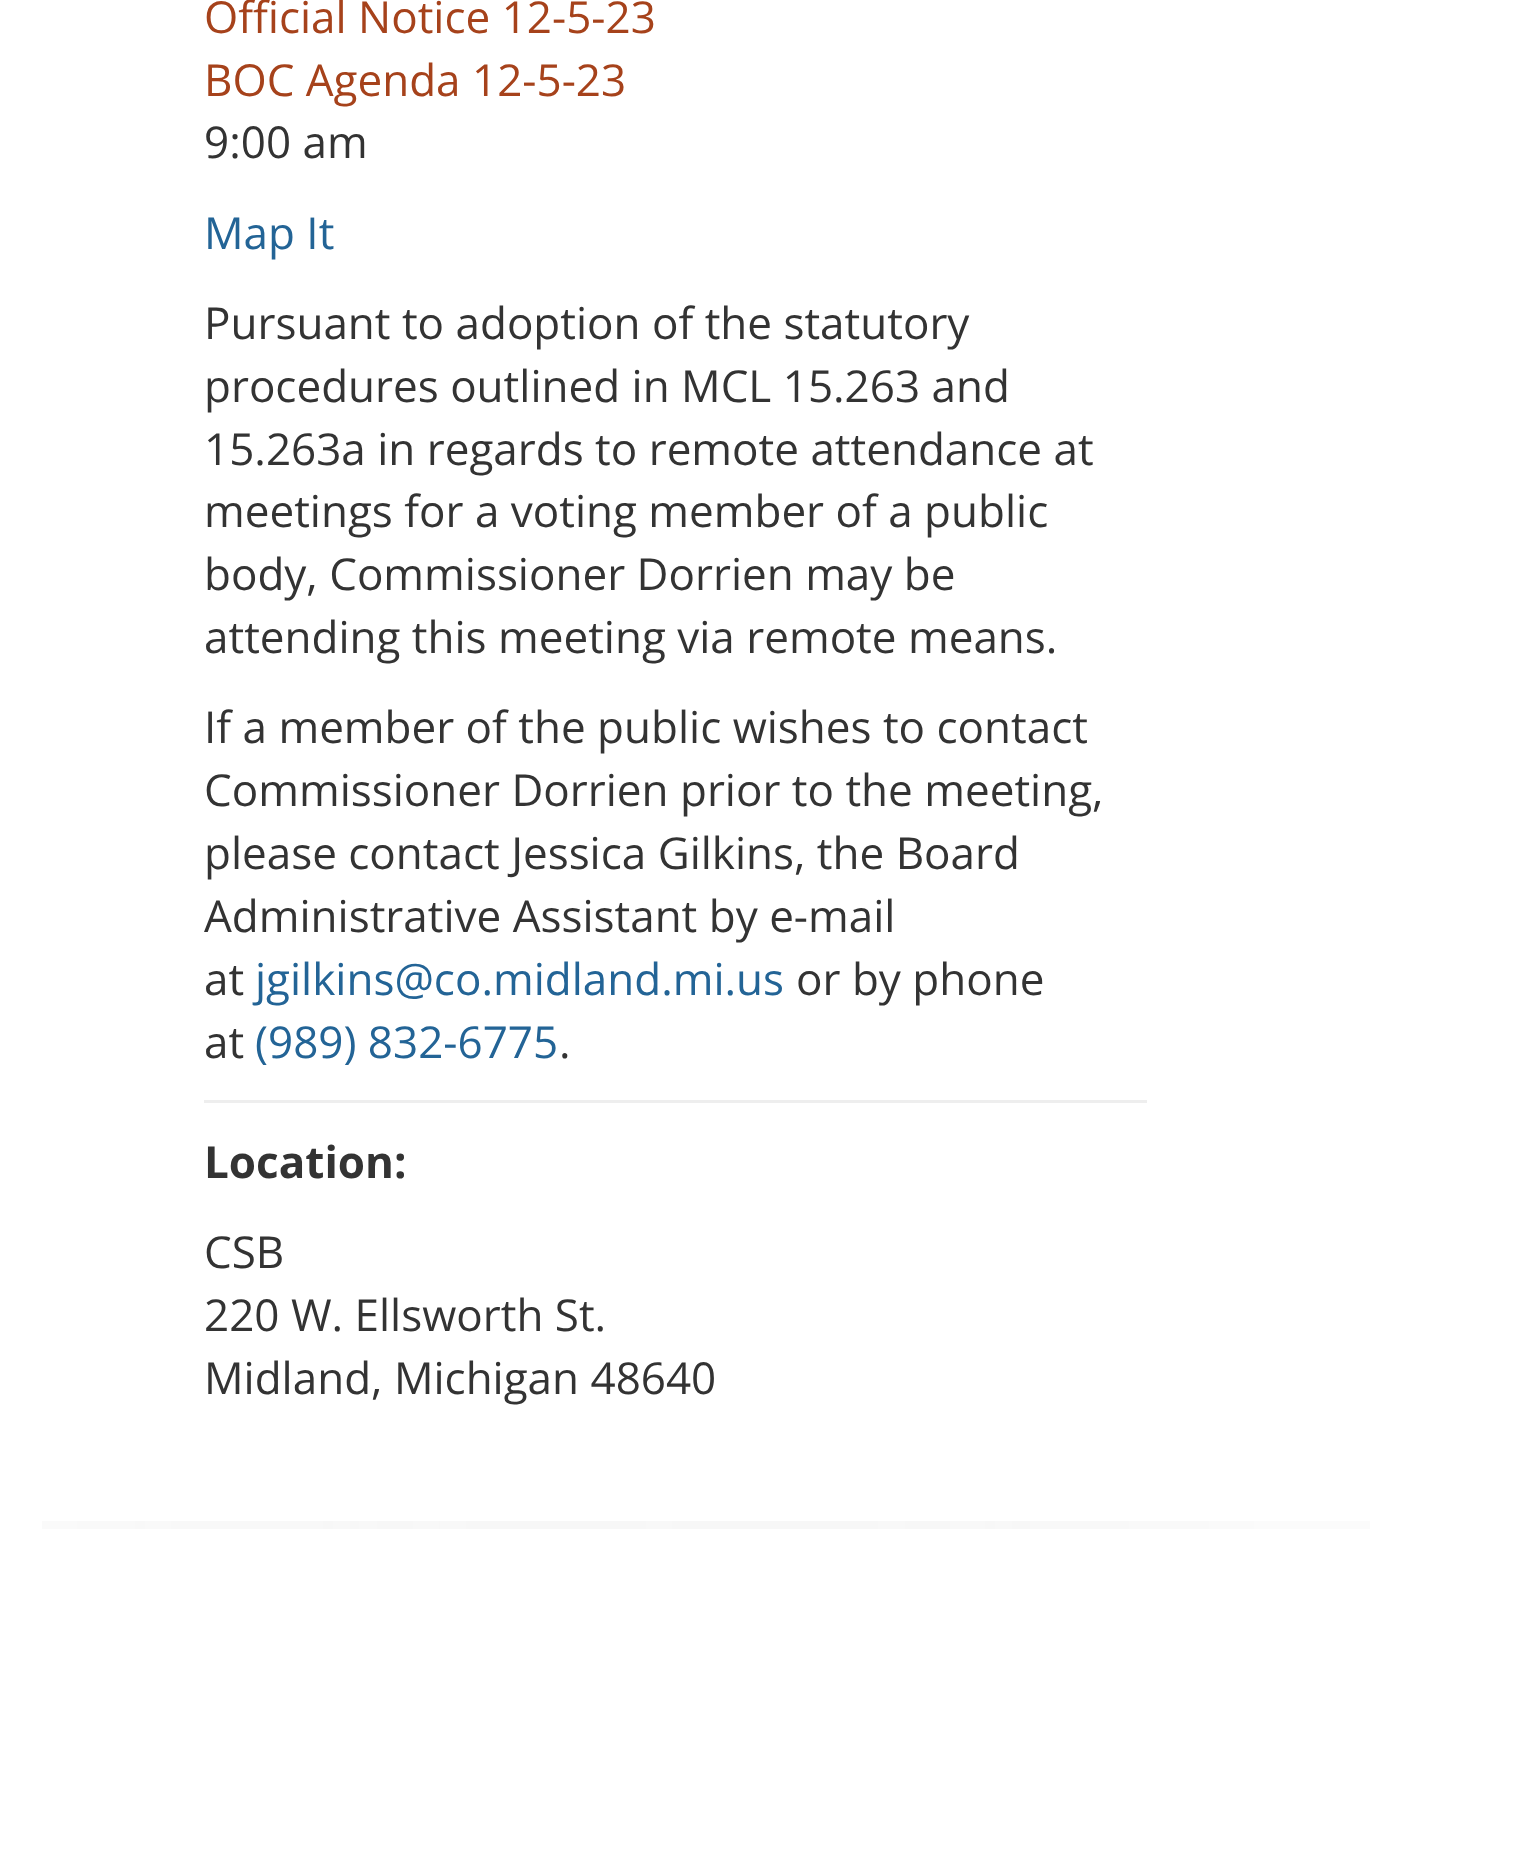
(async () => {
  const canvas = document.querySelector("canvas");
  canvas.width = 1530;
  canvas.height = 1862;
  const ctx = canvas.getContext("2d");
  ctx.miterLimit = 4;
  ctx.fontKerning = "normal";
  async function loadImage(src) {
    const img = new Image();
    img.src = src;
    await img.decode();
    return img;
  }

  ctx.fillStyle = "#ffffff";
  ctx.fillRect(0, 0, 1530, 1862);
  ctx.fillStyle = "#eeeeee";
  ctx.fillRect(204, 1100, 943, 3);
  ctx.drawImage(await loadImage("img/1.png"), 42, 1521, 1328, 8);
  ctx.font = "44px Open Sans";
  ctx.fillStyle = "#a6421b";
  ctx.fillText("Official Notice 12-5-23", 204, 33);
  ctx.fillText("BOC Agenda 12-5-23", 204, 96);
  ctx.fillStyle = "#333333";
  ctx.fillText("9:00 am", 204, 158);
  ctx.fillStyle = "#236496";
  ctx.fillText("Map It", 204, 249);
  ctx.fillStyle = "#333333";
  for (const [text, x, y] of [
    ["Pursuant to adoption of the statutory", 204, 339],
    ["procedures outlined in MCL 15.263 and", 204, 402],
    ["15.263a in regards to remote attendance at", 204, 465],
    ["meetings for a voting member of a public", 204, 527],
    ["body, Commissioner Dorrien may be", 204, 590],
    ["attending this meeting via remote means.", 204, 653],
    ["If a member of the public wishes to contact", 204, 743],
    ["Commissioner Dorrien prior to the meeting,", 204, 806],
    ["please contact Jessica Gilkins, the Board", 204, 869],
    ["Administrative Assistant by e-mail", 204, 932],
    ["at", 204, 995],
  ]) {
    ctx.fillText(text, x, y);
  }
  ctx.fillStyle = "#236496";
  ctx.fillText("jgilkins@co.midland.mi.us", 255, 995);
  ctx.fillStyle = "#333333";
  ctx.fillText("or by phone", 796, 995);
  ctx.fillText("at", 204, 1058);
  ctx.fillStyle = "#236496";
  ctx.fillText("(989) 832-6775", 255, 1058);
  ctx.fillStyle = "#333333";
  ctx.fillText(".", 559, 1058);
  ctx.font = "bold 44px Open Sans";
  ctx.fillText("Location:", 204, 1178);
  ctx.font = "44px Open Sans";
  for (const [text, x, y] of [
    ["CSB", 204, 1268],
    ["220 W. Ellsworth St.", 204, 1331],
    ["Midland, Michigan 48640", 204, 1394],
  ]) {
    ctx.fillText(text, x, y);
  }
})();
